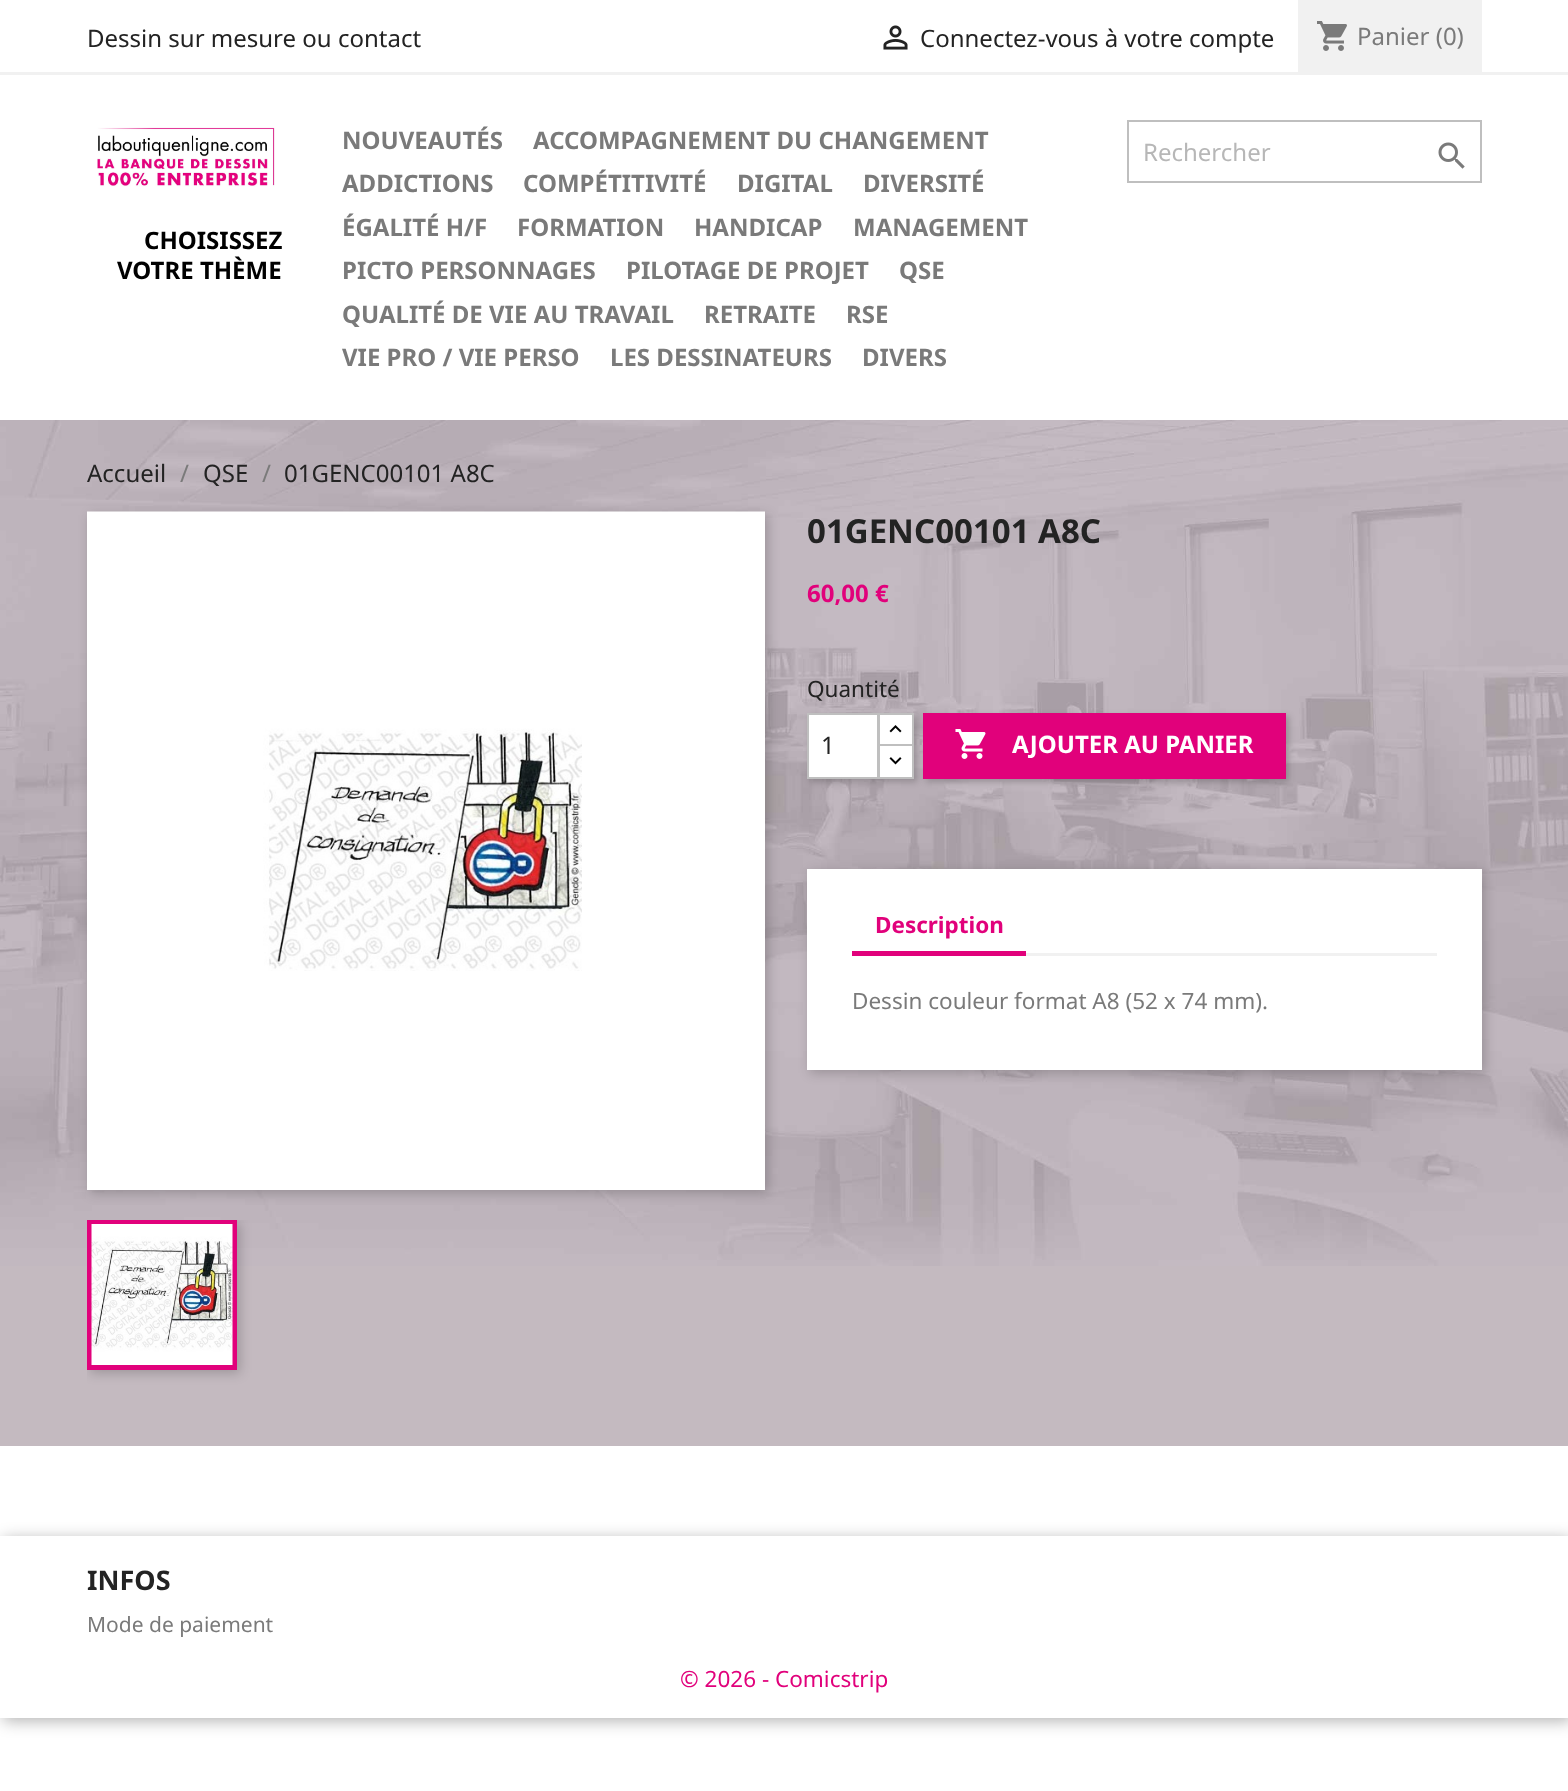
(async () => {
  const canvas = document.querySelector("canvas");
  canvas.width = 1568;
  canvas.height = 1791;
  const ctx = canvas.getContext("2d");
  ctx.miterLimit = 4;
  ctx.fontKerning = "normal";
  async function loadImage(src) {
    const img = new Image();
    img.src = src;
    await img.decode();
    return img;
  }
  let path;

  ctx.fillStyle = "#ffffff";
  ctx.fillRect(0, 0, 1568, 1791);
  ctx.fillStyle = "#f1f1f1";
  ctx.fillRect(0, 72, 1568, 3);
  ctx.drawImage(await loadImage("img/1.png"), 883, 25, 25, 25);
  ctx.fillRect(1298, 0, 184, 72);
  ctx.drawImage(await loadImage("img/2.png"), 1317, 21, 30, 30);
  ctx.drawImage(await loadImage("img/3.png"), 97, 127, 178, 60);
  ctx.strokeStyle = "#bfbfbf";
  ctx.lineWidth = 2;
  ctx.strokeRect(1128, 121, 353, 61);
  ctx.drawImage(await loadImage("img/4.png"), 1438, 142, 27, 27);
  ctx.fillStyle = "#c4bac0";
  ctx.fillRect(0, 1266, 1568, 180);
  ctx.drawImage(await loadImage("img/5.png"), 0, 420, 1568, 846);
  ctx.fillStyle = "rgba(0, 0, 0, 0.2)";
  ctx.filter = "blur(6px)";
  ctx.beginPath();
  ctx.rect(90, 515, 678, 678);
  ctx.fill();
  ctx.filter = "none";
  ctx.drawImage(await loadImage("img/6.png"), 87, 511, 678, 460);
  ctx.fillStyle = "#ffffff";
  ctx.fillRect(87, 971, 678, 219);
  ctx.save();
  ctx.beginPath();
  ctx.rect(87, 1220, 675, 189);
  ctx.clip();
  ctx.fillStyle = "rgba(0, 0, 0, 0.2)";
  ctx.filter = "blur(6px)";
  ctx.beginPath();
  ctx.rect(90, 1223, 150, 150);
  ctx.fill();
  ctx.filter = "none";
  ctx.restore();
  ctx.strokeStyle = "#e1017b";
  ctx.lineWidth = 5;
  ctx.strokeRect(89.5, 1222.5, 145, 145);
  ctx.drawImage(await loadImage("img/7.png"), 91, 1224, 142, 141);
  ctx.fillStyle = "rgba(0, 0, 0, 0.2)";
  ctx.filter = "blur(3px)";
  ctx.beginPath();
  ctx.rect(926, 716, 363, 66);
  ctx.fill();
  ctx.filter = "none";
  ctx.fillStyle = "#e1017b";
  ctx.fillRect(923, 713, 363, 66);
  ctx.fillStyle = "rgba(0, 0, 0, 0.2)";
  ctx.filter = "blur(3px)";
  ctx.beginPath();
  ctx.rect(810, 716, 107, 66);
  ctx.fill();
  ctx.filter = "none";
  ctx.fillStyle = "#ffffff";
  ctx.fillRect(880, 715, 32, 29);
  ctx.strokeStyle = "#bfbfbf";
  ctx.lineWidth = 2;
  ctx.strokeRect(879, 714, 34, 32);
  ctx.beginPath();
  ctx.rect(879, 745, 34, 33);
  ctx.fill();
  ctx.stroke();
  ctx.beginPath();
  ctx.rect(808, 714, 70, 64);
  ctx.fill();
  ctx.stroke();
  ctx.drawImage(await loadImage("img/8.png"), 889, 725, 13, 8);
  ctx.drawImage(await loadImage("img/9.png"), 889, 757, 13, 8);
  ctx.drawImage(await loadImage("img/10.png"), 955, 729, 31, 30);
  ctx.fillStyle = "rgba(0, 0, 0, 0.2)";
  ctx.filter = "blur(6px)";
  ctx.beginPath();
  ctx.rect(810, 872, 675, 201);
  ctx.fill();
  ctx.filter = "none";
  for (const [x, y, w, h, color] of [
    [807, 869, 675, 201, "#ffffff"],
    [1026, 953, 411, 3, "#f1f1f1"],
    [852, 951, 174, 5, "#e1017b"],
  ]) {
    ctx.fillStyle = color;
    ctx.fillRect(x, y, w, h);
  }
  ctx.save();
  path = new Path2D("M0 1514H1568V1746H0ZM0 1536H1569V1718H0Z");
  ctx.clip(path, "evenodd");
  ctx.fillStyle = "rgba(0, 0, 0, 0.3)";
  ctx.filter = "blur(8px)";
  ctx.beginPath();
  ctx.rect(3, 1539, 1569, 182);
  ctx.fill();
  ctx.filter = "none";
  ctx.restore();
  ctx.font = "24px Noto Sans";
  ctx.fillStyle = "#232323";
  ctx.fillText("Dessin sur mesure ou contact", 87, 47);
  ctx.fillText("Connectez-vous à votre compte", 920, 47);
  ctx.fillStyle = "#7a7a7a";
  ctx.fillText("Panier (0)", 1357, 45);
  ctx.font = "bold 24px Noto Sans";
  ctx.fillStyle = "#000000";
  ctx.fillText("CHOISISSEZ", 144, 249);
  ctx.fillText("VOTRE THÈME", 117, 279);
  ctx.fillStyle = "#7a7a7a";
  for (const [text, x, y] of [
    ["NOUVEAUTÉS", 342, 149],
    ["ACCOMPAGNEMENT DU CHANGEMENT", 533, 149],
    ["ADDICTIONS", 342, 192],
    ["COMPÉTITIVITÉ", 523, 192],
    ["DIGITAL", 737, 192],
    ["DIVERSITÉ", 863, 192],
    ["ÉGALITÉ H/F", 342, 236],
    ["FORMATION", 517, 236],
    ["HANDICAP", 694, 236],
    ["MANAGEMENT", 853, 236],
    ["PICTO PERSONNAGES", 342, 279],
    ["PILOTAGE DE PROJET", 626, 279],
    ["QSE", 899, 279],
    ["QUALITÉ DE VIE AU TRAVAIL", 342, 323],
    ["RETRAITE", 704, 323],
    ["RSE", 846, 323],
    ["VIE PRO / VIE PERSO", 342, 366],
    ["LES DESSINATEURS", 610, 366],
    ["DIVERS", 862, 366],
  ]) {
    ctx.fillText(text, x, y);
  }
  ctx.font = "24px Noto Sans";
  ctx.fillStyle = "#b7b7b7";
  ctx.fillText("Rechercher", 1143, 161);
  ctx.fillStyle = "#232323";
  ctx.fillText("Accueil", 87, 482);
  ctx.fillStyle = "#7a7a7a";
  ctx.fillText("/", 180, 482);
  ctx.fillStyle = "#232323";
  ctx.fillText("QSE", 203, 482);
  ctx.fillStyle = "#7a7a7a";
  ctx.fillText("/", 262, 482);
  ctx.fillStyle = "#232323";
  ctx.fillText("01GENC00101 A8C", 284, 482);
  ctx.font = "bold 33px Noto Sans";
  ctx.fillText("01GENC00101 A8C", 807, 543);
  ctx.font = "bold 24px Noto Sans";
  ctx.fillStyle = "#e1017b";
  ctx.fillText("60,00 €", 807, 602);
  ctx.font = "22.5px Noto Sans";
  ctx.fillStyle = "#232323";
  ctx.fillText("Quantité", 807, 697);
  ctx.font = "24px Noto Sans";
  ctx.fillText("1", 821, 754);
  ctx.font = "bold 24px Noto Sans";
  ctx.fillStyle = "#ffffff";
  ctx.fillText("AJOUTER AU PANIER", 1012, 753);
  ctx.font = "bold 22.5px Noto Sans";
  ctx.fillStyle = "#e1017b";
  ctx.fillText("Description", 875, 933);
  ctx.font = "22.5px Noto Sans";
  ctx.fillStyle = "#7a7a7a";
  ctx.fillText("Dessin couleur format A8 (52 x 74 mm).", 852, 1009);
  ctx.font = "bold 27px Noto Sans";
  ctx.fillStyle = "#232323";
  ctx.fillText("INFOS", 87, 1590);
  ctx.font = "21px Noto Sans";
  ctx.fillStyle = "#7a7a7a";
  ctx.fillText("Mode de paiement", 87, 1632);
  ctx.font = "22.5px Noto Sans";
  ctx.fillStyle = "#e1017b";
  ctx.fillText("© 2026 - Comicstrip", 680, 1687);
})();
